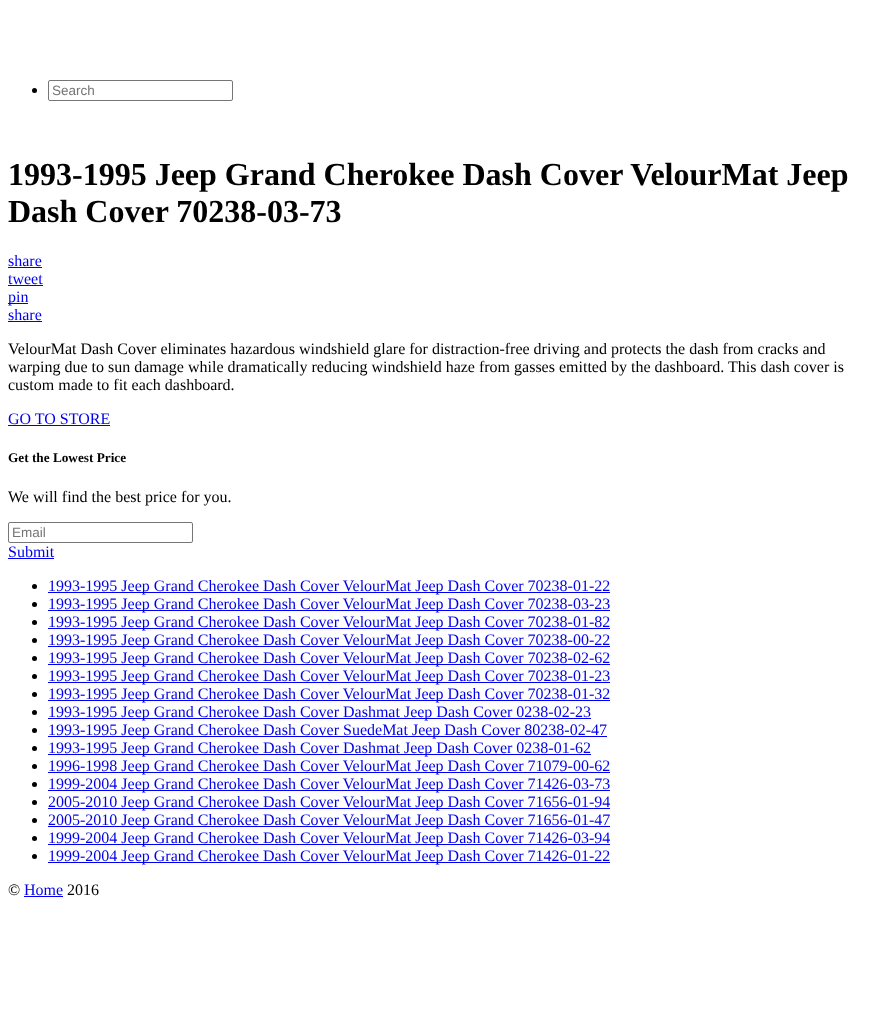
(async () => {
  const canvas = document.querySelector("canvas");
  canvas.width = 877;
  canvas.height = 1021;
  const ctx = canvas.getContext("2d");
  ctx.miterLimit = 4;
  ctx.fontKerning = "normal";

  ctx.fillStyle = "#ffffff";
  ctx.fillRect(0, 0, 877, 1021);
  ctx.fillStyle = "#000000";
  ctx.beginPath();
  ctx.arc(34.5, 90.5, 2.5, 0, Math.PI * 2);
  ctx.fill();
  ctx.beginPath();
  ctx.roundRect(48.5, 80.5, 184, 20, 1.5);
  ctx.strokeStyle = "#767676";
  ctx.stroke();
  for (const [x, y, w, h, color] of [
    [8, 267, 34, 1, "#0000ee"],
    [8, 285, 35, 1, "#0000ee"],
    [8, 303, 20, 1, "#0000ee"],
    [8, 321, 34, 1, "#0000ee"],
    [8, 425, 102, 1, "#0000ee"],
  ]) {
    ctx.fillStyle = color;
    ctx.fillRect(x, y, w, h);
  }
  ctx.beginPath();
  ctx.roundRect(8.5, 522.5, 184, 20, 1.5);
  ctx.stroke();
  ctx.fillRect(8, 558, 46, 1);
  ctx.fillStyle = "#000000";
  ctx.beginPath();
  ctx.arc(34.5, 586.5, 2.5, 0, Math.PI * 2);
  ctx.fill();
  ctx.fillStyle = "#0000ee";
  ctx.fillRect(48, 592, 562, 1);
  ctx.fillStyle = "#000000";
  ctx.beginPath();
  ctx.arc(34.5, 604.5, 2.5, 0, Math.PI * 2);
  ctx.fill();
  ctx.fillStyle = "#0000ee";
  ctx.fillRect(48, 610, 562, 1);
  ctx.fillStyle = "#000000";
  ctx.beginPath();
  ctx.arc(34.5, 622.5, 2.5, 0, Math.PI * 2);
  ctx.fill();
  ctx.fillStyle = "#0000ee";
  ctx.fillRect(48, 628, 562, 1);
  ctx.fillStyle = "#000000";
  ctx.beginPath();
  ctx.arc(34.5, 640.5, 2.5, 0, Math.PI * 2);
  ctx.fill();
  ctx.fillStyle = "#0000ee";
  ctx.fillRect(48, 646, 562, 1);
  ctx.fillStyle = "#000000";
  ctx.beginPath();
  ctx.arc(34.5, 658.5, 2.5, 0, Math.PI * 2);
  ctx.fill();
  ctx.fillStyle = "#0000ee";
  ctx.fillRect(48, 664, 562, 1);
  ctx.fillStyle = "#000000";
  ctx.beginPath();
  ctx.arc(34.5, 676.5, 2.5, 0, Math.PI * 2);
  ctx.fill();
  ctx.fillStyle = "#0000ee";
  ctx.fillRect(48, 682, 562, 1);
  ctx.fillStyle = "#000000";
  ctx.beginPath();
  ctx.arc(34.5, 694.5, 2.5, 0, Math.PI * 2);
  ctx.fill();
  ctx.fillStyle = "#0000ee";
  ctx.fillRect(48, 700, 562, 1);
  ctx.fillStyle = "#000000";
  ctx.beginPath();
  ctx.arc(34.5, 712.5, 2.5, 0, Math.PI * 2);
  ctx.fill();
  ctx.fillStyle = "#0000ee";
  ctx.fillRect(48, 718, 543, 1);
  ctx.fillStyle = "#000000";
  ctx.beginPath();
  ctx.arc(34.5, 730.5, 2.5, 0, Math.PI * 2);
  ctx.fill();
  ctx.fillStyle = "#0000ee";
  ctx.fillRect(48, 736, 559, 1);
  ctx.fillStyle = "#000000";
  ctx.beginPath();
  ctx.arc(34.5, 748.5, 2.5, 0, Math.PI * 2);
  ctx.fill();
  ctx.fillStyle = "#0000ee";
  ctx.fillRect(48, 754, 543, 1);
  ctx.fillStyle = "#000000";
  ctx.beginPath();
  ctx.arc(34.5, 766.5, 2.5, 0, Math.PI * 2);
  ctx.fill();
  ctx.fillStyle = "#0000ee";
  ctx.fillRect(48, 772, 562, 1);
  ctx.fillStyle = "#000000";
  ctx.beginPath();
  ctx.arc(34.5, 784.5, 2.5, 0, Math.PI * 2);
  ctx.fill();
  ctx.fillStyle = "#0000ee";
  ctx.fillRect(48, 790, 562, 1);
  ctx.fillStyle = "#000000";
  ctx.beginPath();
  ctx.arc(34.5, 802.5, 2.5, 0, Math.PI * 2);
  ctx.fill();
  ctx.fillStyle = "#0000ee";
  ctx.fillRect(48, 808, 562, 1);
  ctx.fillStyle = "#000000";
  ctx.beginPath();
  ctx.arc(34.5, 820.5, 2.5, 0, Math.PI * 2);
  ctx.fill();
  ctx.fillStyle = "#0000ee";
  ctx.fillRect(48, 826, 562, 1);
  ctx.fillStyle = "#000000";
  ctx.beginPath();
  ctx.arc(34.5, 838.5, 2.5, 0, Math.PI * 2);
  ctx.fill();
  ctx.fillStyle = "#0000ee";
  ctx.fillRect(48, 844, 562, 1);
  ctx.fillStyle = "#000000";
  ctx.beginPath();
  ctx.arc(34.5, 856.5, 2.5, 0, Math.PI * 2);
  ctx.fill();
  ctx.fillStyle = "#0000ee";
  ctx.fillRect(48, 862, 562, 1);
  ctx.fillRect(24, 896, 39, 1);
  ctx.font = "13.5px Liberation Sans";
  ctx.fillStyle = "#757575";
  ctx.fillText("Search", 52, 95);
  ctx.font = "bold 32px Liberation Serif";
  ctx.fillStyle = "#000000";
  ctx.fillText("1993-1995 Jeep Grand Cherokee Dash Cover VelourMat Jeep", 8, 185);
  ctx.fillText("Dash Cover 70238-03-73", 8, 222);
  ctx.font = "16px Liberation Serif";
  ctx.fillStyle = "#0000ee";
  for (const [text, x, y] of [
    ["share", 8, 266],
    ["tweet", 8, 284],
    ["pin", 8, 302],
    ["share", 8, 320],
  ]) {
    ctx.fillText(text, x, y);
  }
  ctx.fillStyle = "#000000";
  for (const [text, x, y] of [
    ["VelourMat Dash Cover eliminates hazardous windshield glare for distraction-free driving and protects the dash from cracks and", 8, 354],
    ["warping due to sun damage while dramatically reducing windshield haze from gasses emitted by the dashboard. This dash cover is", 8, 372],
    ["custom made to fit each dashboard.", 8, 390],
  ]) {
    ctx.fillText(text, x, y);
  }
  ctx.fillStyle = "#0000ee";
  ctx.fillText("GO TO STORE", 8, 424);
  ctx.font = "bold 13.25px Liberation Serif";
  ctx.fillStyle = "#000000";
  ctx.fillText("Get the Lowest Price", 8, 462);
  ctx.font = "16px Liberation Serif";
  ctx.fillText("We will find the best price for you.", 8, 502);
  ctx.font = "13.5px Liberation Sans";
  ctx.fillStyle = "#757575";
  ctx.fillText("Email", 12, 537);
  ctx.font = "16px Liberation Serif";
  ctx.fillStyle = "#0000ee";
  for (const [text, x, y] of [
    ["Submit", 8, 557],
    ["1993-1995 Jeep Grand Cherokee Dash Cover VelourMat Jeep Dash Cover 70238-01-22", 48, 591],
    ["1993-1995 Jeep Grand Cherokee Dash Cover VelourMat Jeep Dash Cover 70238-03-23", 48, 609],
    ["1993-1995 Jeep Grand Cherokee Dash Cover VelourMat Jeep Dash Cover 70238-01-82", 48, 627],
    ["1993-1995 Jeep Grand Cherokee Dash Cover VelourMat Jeep Dash Cover 70238-00-22", 48, 645],
    ["1993-1995 Jeep Grand Cherokee Dash Cover VelourMat Jeep Dash Cover 70238-02-62", 48, 663],
    ["1993-1995 Jeep Grand Cherokee Dash Cover VelourMat Jeep Dash Cover 70238-01-23", 48, 681],
    ["1993-1995 Jeep Grand Cherokee Dash Cover VelourMat Jeep Dash Cover 70238-01-32", 48, 699],
    ["1993-1995 Jeep Grand Cherokee Dash Cover Dashmat Jeep Dash Cover 0238-02-23", 48, 717],
    ["1993-1995 Jeep Grand Cherokee Dash Cover SuedeMat Jeep Dash Cover 80238-02-47", 48, 735],
    ["1993-1995 Jeep Grand Cherokee Dash Cover Dashmat Jeep Dash Cover 0238-01-62", 48, 753],
    ["1996-1998 Jeep Grand Cherokee Dash Cover VelourMat Jeep Dash Cover 71079-00-62", 48, 771],
    ["1999-2004 Jeep Grand Cherokee Dash Cover VelourMat Jeep Dash Cover 71426-03-73", 48, 789],
    ["2005-2010 Jeep Grand Cherokee Dash Cover VelourMat Jeep Dash Cover 71656-01-94", 48, 807],
    ["2005-2010 Jeep Grand Cherokee Dash Cover VelourMat Jeep Dash Cover 71656-01-47", 48, 825],
    ["1999-2004 Jeep Grand Cherokee Dash Cover VelourMat Jeep Dash Cover 71426-03-94", 48, 843],
    ["1999-2004 Jeep Grand Cherokee Dash Cover VelourMat Jeep Dash Cover 71426-01-22", 48, 861],
  ]) {
    ctx.fillText(text, x, y);
  }
  ctx.fillStyle = "#000000";
  ctx.fillText("©", 8, 895);
  ctx.fillStyle = "#0000ee";
  ctx.fillText("Home", 24, 895);
  ctx.fillStyle = "#000000";
  ctx.fillText("2016", 67, 895);
})();
